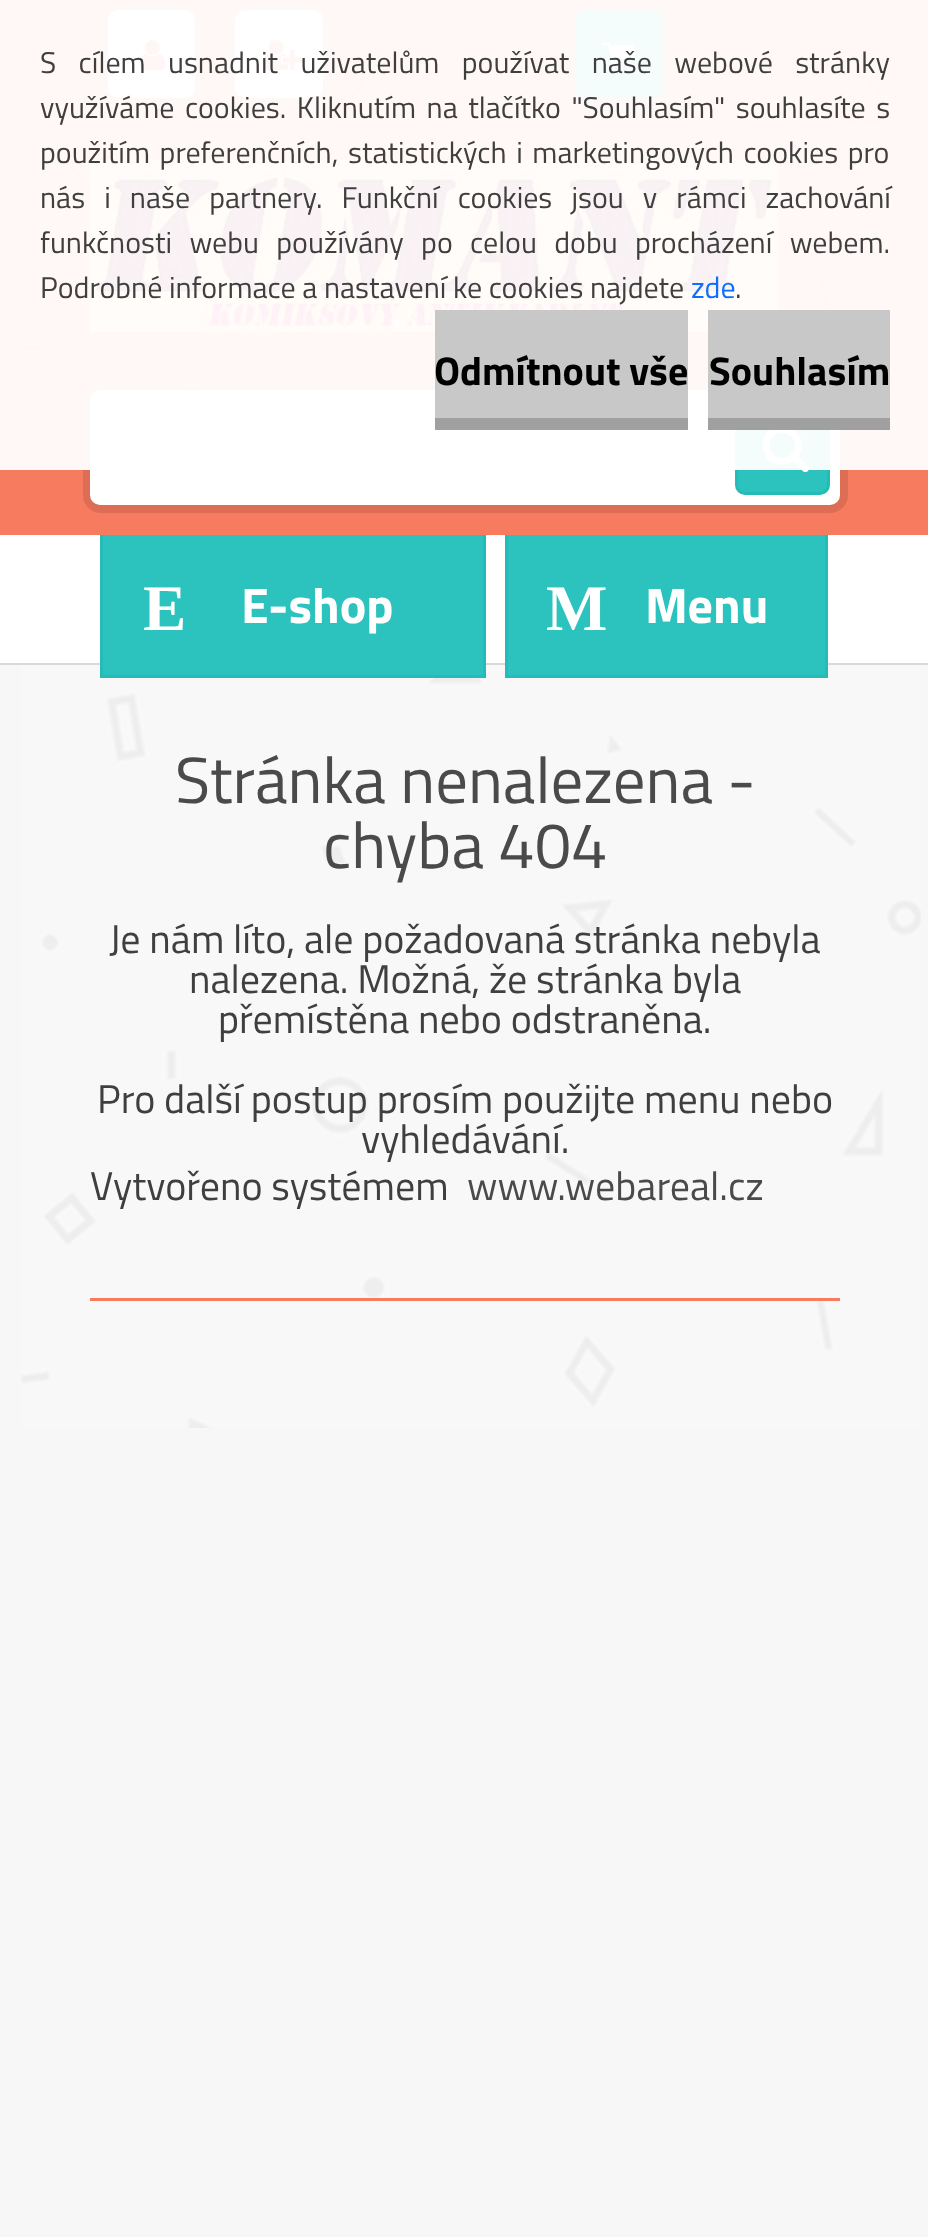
(async () => {
  const canvas = document.querySelector("canvas");
  canvas.width = 928;
  canvas.height = 2237;
  const ctx = canvas.getContext("2d");
  ctx.miterLimit = 4;
  ctx.fontKerning = "normal";
  async function loadImage(src) {
    const img = new Image();
    img.src = src;
    await img.decode();
    return img;
  }

  ctx.fillStyle = "#f7f7f7";
  ctx.fillRect(0, 0, 928, 2237);
  ctx.strokeStyle = "#d9d9d9";
  ctx.lineWidth = 3;
  ctx.strokeRect(-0.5, -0.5, 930, 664);
  ctx.drawImage(await loadImage("img/1.png"), 0, 0, 928, 535);
  ctx.drawImage(await loadImage("img/2.png"), 90, 160, 688, 173);
  ctx.beginPath();
  ctx.roundRect(87, 387, 757, 122, 14);
  ctx.strokeStyle = "rgba(0, 0, 0, 0.1)";
  ctx.lineWidth = 8;
  ctx.stroke();
  ctx.fillStyle = "#ffffff";
  ctx.beginPath();
  ctx.roundRect(90, 390, 750, 115, 10);
  ctx.fill();
  ctx.fillStyle = "#2cc3be";
  ctx.beginPath();
  ctx.roundRect(736.5, 401.5, 92, 92, 8.5);
  ctx.fill();
  ctx.strokeStyle = "#25bcb7";
  ctx.lineWidth = 3;
  ctx.stroke();
  ctx.drawImage(await loadImage("img/3.png"), 762, 430, 47, 43);
  ctx.beginPath();
  ctx.roundRect(104, 7, 95, 94, 14);
  ctx.strokeStyle = "#dd6f56";
  ctx.lineWidth = 8;
  ctx.stroke();
  ctx.fillStyle = "#f7f7f7";
  ctx.beginPath();
  ctx.roundRect(108, 10, 87, 88, 10);
  ctx.fill();
  ctx.drawImage(await loadImage("img/5.png"), 140, 40, 25, 30);
  ctx.beginPath();
  ctx.roundRect(232, 7, 94, 94, 14);
  ctx.strokeStyle = "rgba(0, 0, 0, 0.1)";
  ctx.stroke();
  ctx.beginPath();
  ctx.roundRect(235, 10, 88, 88, 10);
  ctx.fill();
  ctx.drawImage(await loadImage("img/6.png"), 262, 40, 41, 30);
  ctx.beginPath();
  ctx.roundRect(572, 7, 94, 94, 14);
  ctx.strokeStyle = "#dd6f56";
  ctx.stroke();
  ctx.fillStyle = "#2cc3be";
  ctx.beginPath();
  ctx.roundRect(576.5, 11.5, 85, 85, 8.5);
  ctx.fill();
  ctx.strokeStyle = "#2cc3be";
  ctx.lineWidth = 3;
  ctx.stroke();
  ctx.drawImage(await loadImage("img/7.png"), 602, 42, 33, 28);
  for (const [x, y, w, h, color] of [
    [0, 0, 928, 470, "rgba(255, 255, 255, 0.95)"],
    [435, 310, 253, 108, "#c8c8c8"],
    [435, 418, 253, 12, "#a0a0a0"],
    [708, 310, 182, 108, "#c8c8c8"],
    [708, 418, 182, 12, "#a0a0a0"],
    [0, 535, 928, 128, "#ffffff"],
  ]) {
    ctx.fillStyle = color;
    ctx.fillRect(x, y, w, h);
  }
  ctx.drawImage(await loadImage("img/4.png"), 21, 665, 900, 763);
  for (const [x, y, w, h, color] of [
    [103, 535, 380, 140, "#2cc3be"],
    [483, 535, 3, 143, "#25bcb7"],
    [100, 675, 385, 3, "#25bcb7"],
    [100, 535, 3, 143, "#25bcb7"],
    [508, 535, 317, 140, "#2cc3be"],
    [825, 535, 3, 143, "#25bcb7"],
    [505, 675, 323, 3, "#25bcb7"],
    [505, 535, 3, 143, "#25bcb7"],
    [90, 1298, 750, 3, "#f67b5f"],
  ]) {
    ctx.fillStyle = color;
    ctx.fillRect(x, y, w, h);
  }
  ctx.wordSpacing = "15.75px";
  ctx.font = "30px Titillium Web";
  ctx.fillStyle = "#3f3f3f";
  ctx.fillText("S cílem usnadnit uživatelům používat naše webové stránky", 40, 73);
  ctx.wordSpacing = "4px";
  ctx.fillText("využíváme cookies. Kliknutím na tlačítko \"Souhlasím\" souhlasíte s", 40, 118);
  ctx.wordSpacing = "3px";
  ctx.fillText("použitím preferenčních, statistických i marketingových cookies pro", 40, 163);
  ctx.wordSpacing = "12.5px";
  ctx.fillText("nás i naše partnery. Funkční cookies jsou v rámci zachování", 40, 208);
  ctx.wordSpacing = "10.75px";
  ctx.fillText("funkčnosti webu používány po celou dobu procházení webem.", 40, 253);
  ctx.wordSpacing = "0px";
  ctx.fillText("Podrobné informace a nastavení ke cookies najdete", 40, 298);
  ctx.fillStyle = "#0d6efd";
  ctx.fillText("zde", 691, 298);
  ctx.fillStyle = "#3f3f3f";
  ctx.fillText(".", 735, 298);
  ctx.font = "bold 40px Titillium Web";
  ctx.fillStyle = "#000000";
  ctx.fillText("Odmítnout vše", 434, 385);
  ctx.fillText("Souhlasím", 709, 385);
  ctx.font = "bold 65px Liberation Serif";
  ctx.fillStyle = "#ffffff";
  ctx.fillText("E", 143, 630);
  ctx.font = "bold 50px Titillium Web";
  ctx.fillText("E-shop", 241, 623);
  ctx.font = "bold 65px Liberation Serif";
  ctx.fillText("M", 546, 630);
  ctx.font = "bold 50px Titillium Web";
  ctx.fillText("Menu", 645, 623);
  ctx.font = "65px Titillium Web";
  ctx.fillStyle = "#4a4a4a";
  ctx.fillText("Stránka nenalezena -", 175, 803);
  ctx.fillText("chyba 404", 323, 868);
  ctx.font = "40px Titillium Web";
  ctx.fillStyle = "#3f3f3f";
  for (const [text, x, y] of [
    ["Je nám líto, ale požadovaná stránka nebyla", 109, 953],
    ["nalezena. Možná, že stránka byla", 189, 993],
    ["přemístěna nebo odstraněna.", 218, 1033],
    ["Pro další postup prosím použijte menu nebo", 97, 1113],
    ["vyhledávání.", 361, 1153],
    ["Vytvořeno systémem", 90, 1200],
  ]) {
    ctx.fillText(text, x, y);
  }
  ctx.fillStyle = "#4a4a4a";
  ctx.fillText("www.webareal.cz", 467, 1200);
})();
